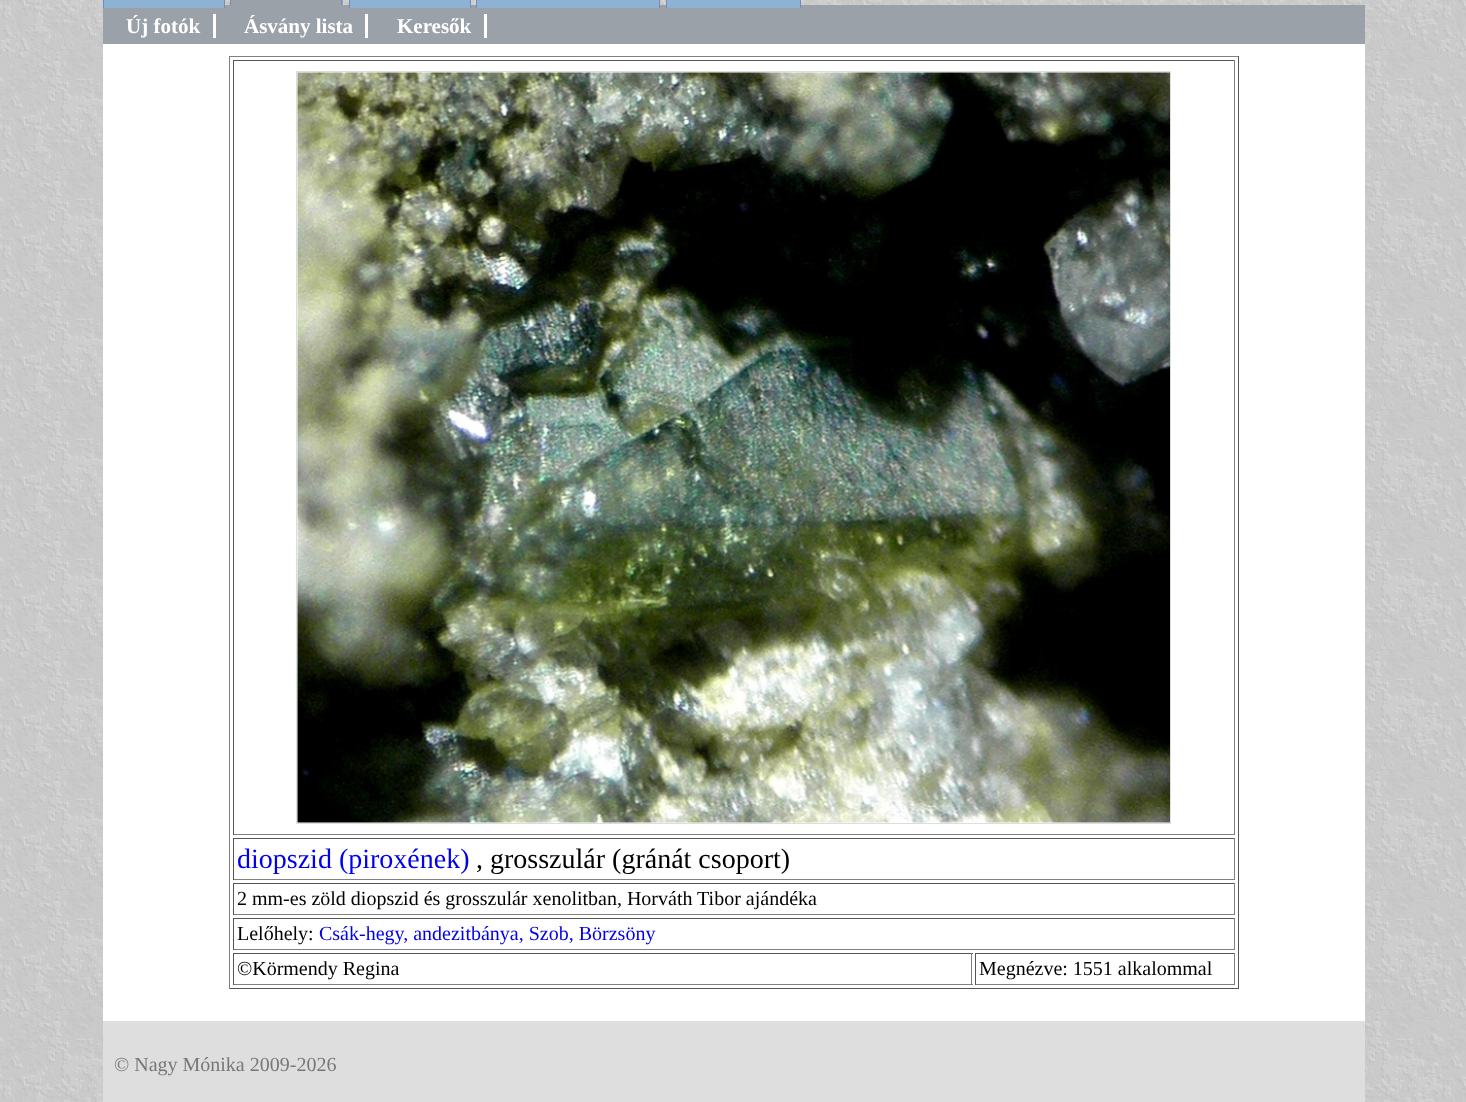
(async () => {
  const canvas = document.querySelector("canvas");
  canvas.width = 1466;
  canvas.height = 1102;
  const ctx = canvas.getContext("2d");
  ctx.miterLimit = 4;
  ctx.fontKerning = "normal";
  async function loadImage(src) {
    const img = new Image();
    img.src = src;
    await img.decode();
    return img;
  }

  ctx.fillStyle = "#ffffff";
  ctx.fillRect(0, 0, 1466, 1102);
  ctx.drawImage(await loadImage("img/1.png"), 0, 0, 1466, 1102);
  for (const [x, y, w, h, color] of [
    [103, 5, 1262, 39, "#9aa1a9"],
    [103, 0, 122, 8, "#8db2d4"],
    [103, 0, 1, 8, "#738cba"],
    [224, 0, 1, 8, "#738cba"],
    [230, 0, 113, 5, "#9aa1a9"],
    [230, 0, 1, 5, "#738cba"],
    [341, 0, 1, 5, "#738cba"],
    [349, 0, 122, 8, "#8db2d4"],
    [349, 0, 1, 8, "#738cba"],
    [470, 0, 1, 8, "#738cba"],
    [476, 0, 184, 8, "#8db2d4"],
    [476, 0, 1, 8, "#738cba"],
    [659, 0, 1, 8, "#738cba"],
    [666, 0, 135, 8, "#8db2d4"],
    [666, 0, 1, 8, "#738cba"],
    [800, 0, 1, 8, "#738cba"],
    [103, 44, 1262, 977, "#ffffff"],
    [213, 14, 3, 24, "#ffffff"],
    [365, 14, 3, 24, "#ffffff"],
    [484, 14, 3, 24, "#ffffff"],
    [229, 56, 1010, 1, "#808080"],
    [1238, 56, 1, 933, "#555555"],
    [229, 988, 1010, 1, "#555555"],
    [229, 56, 1, 933, "#808080"],
    [233, 60, 1002, 1, "#555555"],
    [1234, 60, 1, 775, "#808080"],
    [233, 834, 1002, 1, "#808080"],
    [233, 60, 1, 775, "#555555"],
  ]) {
    ctx.fillStyle = color;
    ctx.fillRect(x, y, w, h);
  }
  ctx.strokeStyle = "#dedede";
  ctx.strokeRect(296.5, 71.5, 874, 752);
  ctx.drawImage(await loadImage("img/2.png"), 297, 72, 873, 751);
  for (const [x, y, w, h, color] of [
    [233, 838, 1002, 1, "#555555"],
    [1234, 838, 1, 42, "#808080"],
    [233, 879, 1002, 1, "#808080"],
    [233, 838, 1, 42, "#555555"],
    [233, 883, 1002, 1, "#555555"],
    [1234, 883, 1, 32, "#808080"],
    [233, 914, 1002, 1, "#808080"],
    [233, 883, 1, 32, "#555555"],
    [233, 918, 1002, 1, "#555555"],
    [1234, 918, 1, 32, "#808080"],
    [233, 949, 1002, 1, "#808080"],
    [233, 918, 1, 32, "#555555"],
    [233, 953, 740, 1, "#555555"],
    [971, 953, 1, 32, "#808080"],
    [233, 984, 740, 1, "#808080"],
    [233, 953, 1, 32, "#555555"],
    [975, 953, 260, 1, "#555555"],
    [1234, 953, 1, 32, "#808080"],
    [975, 984, 260, 1, "#808080"],
    [975, 953, 1, 32, "#555555"],
    [103, 1021, 1262, 81, "#dedede"],
  ]) {
    ctx.fillStyle = color;
    ctx.fillRect(x, y, w, h);
  }
  ctx.font = "bold 21px Liberation Serif";
  ctx.fillStyle = "#ffffff";
  for (const [text, x, y] of [
    ["Új fotók", 126, 33],
    ["Ásvány lista", 244, 33],
    ["Keresők", 397, 33],
  ]) {
    ctx.fillText(text, x, y);
  }
  ctx.font = "28px Liberation Serif";
  ctx.fillStyle = "#0000ee";
  ctx.fillText("diopszid (piroxének)", 237, 868);
  ctx.fillStyle = "#000000";
  ctx.fillText(", grosszulár (gránát csoport)", 476, 868);
  ctx.font = "20px Liberation Serif";
  ctx.fillText("2 mm-es zöld diopszid és grosszulár xenolitban, Horváth Tibor ajándéka", 237, 905);
  ctx.fillText("Lelőhely:", 237, 940);
  ctx.fillStyle = "#0000ee";
  ctx.fillText("Csák-hegy, andezitbánya, Szob, Börzsöny", 319, 940);
  ctx.fillStyle = "#000000";
  ctx.fillText("©Körmendy Regina", 237, 975);
  ctx.fillText("Megnézve: 1551 alkalommal", 979, 975);
  ctx.fillStyle = "#777777";
  ctx.fillText("© Nagy Mónika 2009-2026", 114, 1071);
})();
